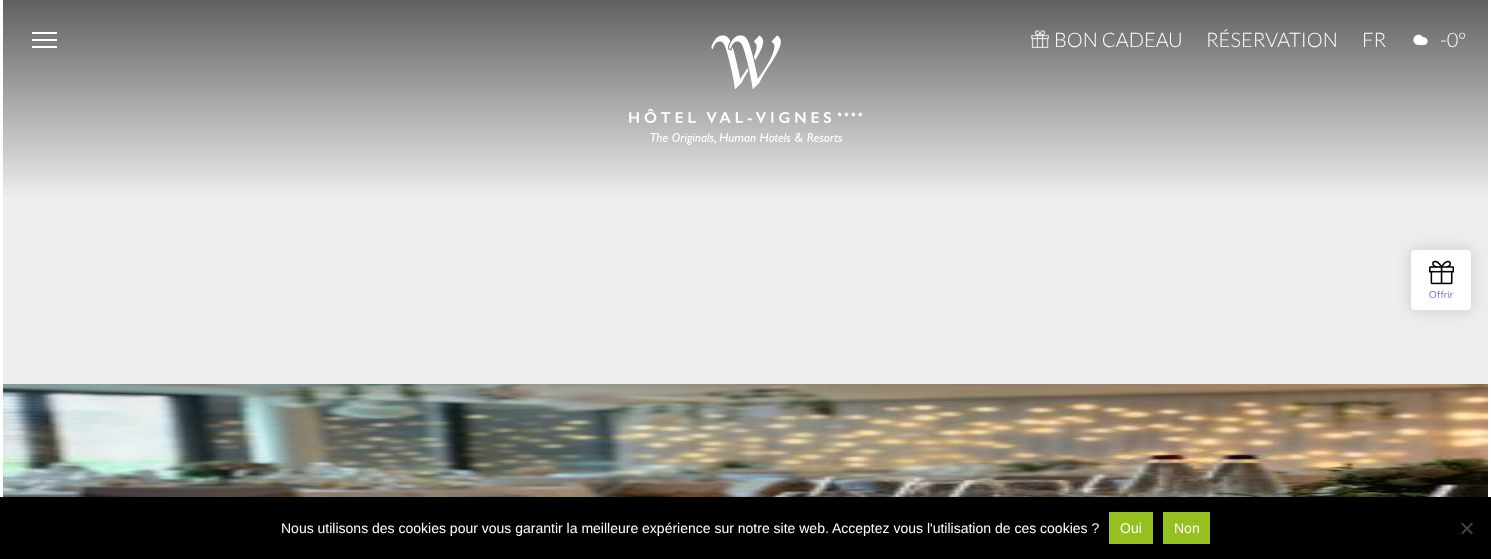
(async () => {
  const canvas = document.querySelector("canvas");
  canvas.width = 1491;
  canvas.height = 559;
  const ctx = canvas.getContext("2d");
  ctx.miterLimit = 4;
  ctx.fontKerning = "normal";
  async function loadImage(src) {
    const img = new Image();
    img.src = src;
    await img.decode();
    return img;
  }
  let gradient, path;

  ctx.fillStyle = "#eeeeee";
  ctx.fillRect(0, 0, 1491, 559);
  ctx.fillStyle = "#ffffff";
  ctx.fillRect(0, 0, 3, 497);
  gradient = ctx.createLinearGradient(746, 0, 746, 200);
  gradient.addColorStop(0, "#606060");
  gradient.addColorStop(1, "#efefef");
  ctx.fillStyle = gradient;
  ctx.fillRect(3, 0, 1485, 195);
  for (const [x, y, w, h, color] of [
    [32, 39, 25, 2, "#ffffff"],
    [32, 32, 25, 2, "#ffffff"],
    [32, 46, 25, 2, "#ffffff"],
  ]) {
    ctx.fillStyle = color;
    ctx.fillRect(x, y, w, h);
  }
  ctx.drawImage(await loadImage("img/1.png"), 629, 35, 234, 110);
  ctx.drawImage(await loadImage("img/2.png"), 1030, 29, 19, 19);
  ctx.drawImage(await loadImage("img/3.png"), 1413, 34, 15, 12);
  ctx.fillRect(1488, 0, 3, 497);
  ctx.fillStyle = "rgba(0, 0, 0, 0.15)";
  ctx.filter = "blur(7.5px)";
  ctx.beginPath();
  ctx.rect(1411, 250, 60, 60);
  ctx.fill();
  ctx.filter = "none";
  ctx.fillStyle = "#ffffff";
  ctx.beginPath();
  ctx.roundRect(1411, 250, 60, 60, 4);
  ctx.fill();
  ctx.drawImage(await loadImage("img/4.png"), 1429, 260, 25, 25);
  ctx.drawImage(await loadImage("img/5.png"), 3, 384, 1485, 113);
  for (const [x, y, w, h, color] of [
    [0, 497, 1491, 62, "#000000"],
    [1109, 512, 44, 32, "#94c11f"],
    [1163, 512, 47, 32, "#94c11f"],
  ]) {
    ctx.fillStyle = color;
    ctx.fillRect(x, y, w, h);
  }
  ctx.fillStyle = "#404040";
  path = new Path2D("M1471.5 522.5L1473 524L1462.5 534.5L1461 533Z");
  ctx.fill(path);
  path = new Path2D("M1461 524L1462.5 522.5L1473 533L1471.5 534.5Z");
  ctx.fill(path);
  ctx.font = "300 20px Lato";
  ctx.fillStyle = "#ffffff";
  for (const [text, x, y] of [
    ["BON CADEAU", 1054, 47],
    ["RÉSERVATION", 1206, 47],
    ["FR", 1362, 47],
    ["-0°", 1440, 47],
  ]) {
    ctx.fillText(text, x, y);
  }
  ctx.font = "300 10px Quicksand";
  ctx.fillStyle = "#4847cc";
  ctx.fillText("Offrir", 1429, 298);
  ctx.font = "14px Liberation Sans";
  ctx.fillStyle = "#ffffff";
  for (const [text, x, y] of [
    ["Nous utilisons des cookies pour vous garantir la meilleure expérience sur notre site web. Acceptez vous l'utilisation de ces cookies ?", 281, 533],
    ["Oui", 1120, 533],
    ["Non", 1174, 533],
  ]) {
    ctx.fillText(text, x, y);
  }
})();
